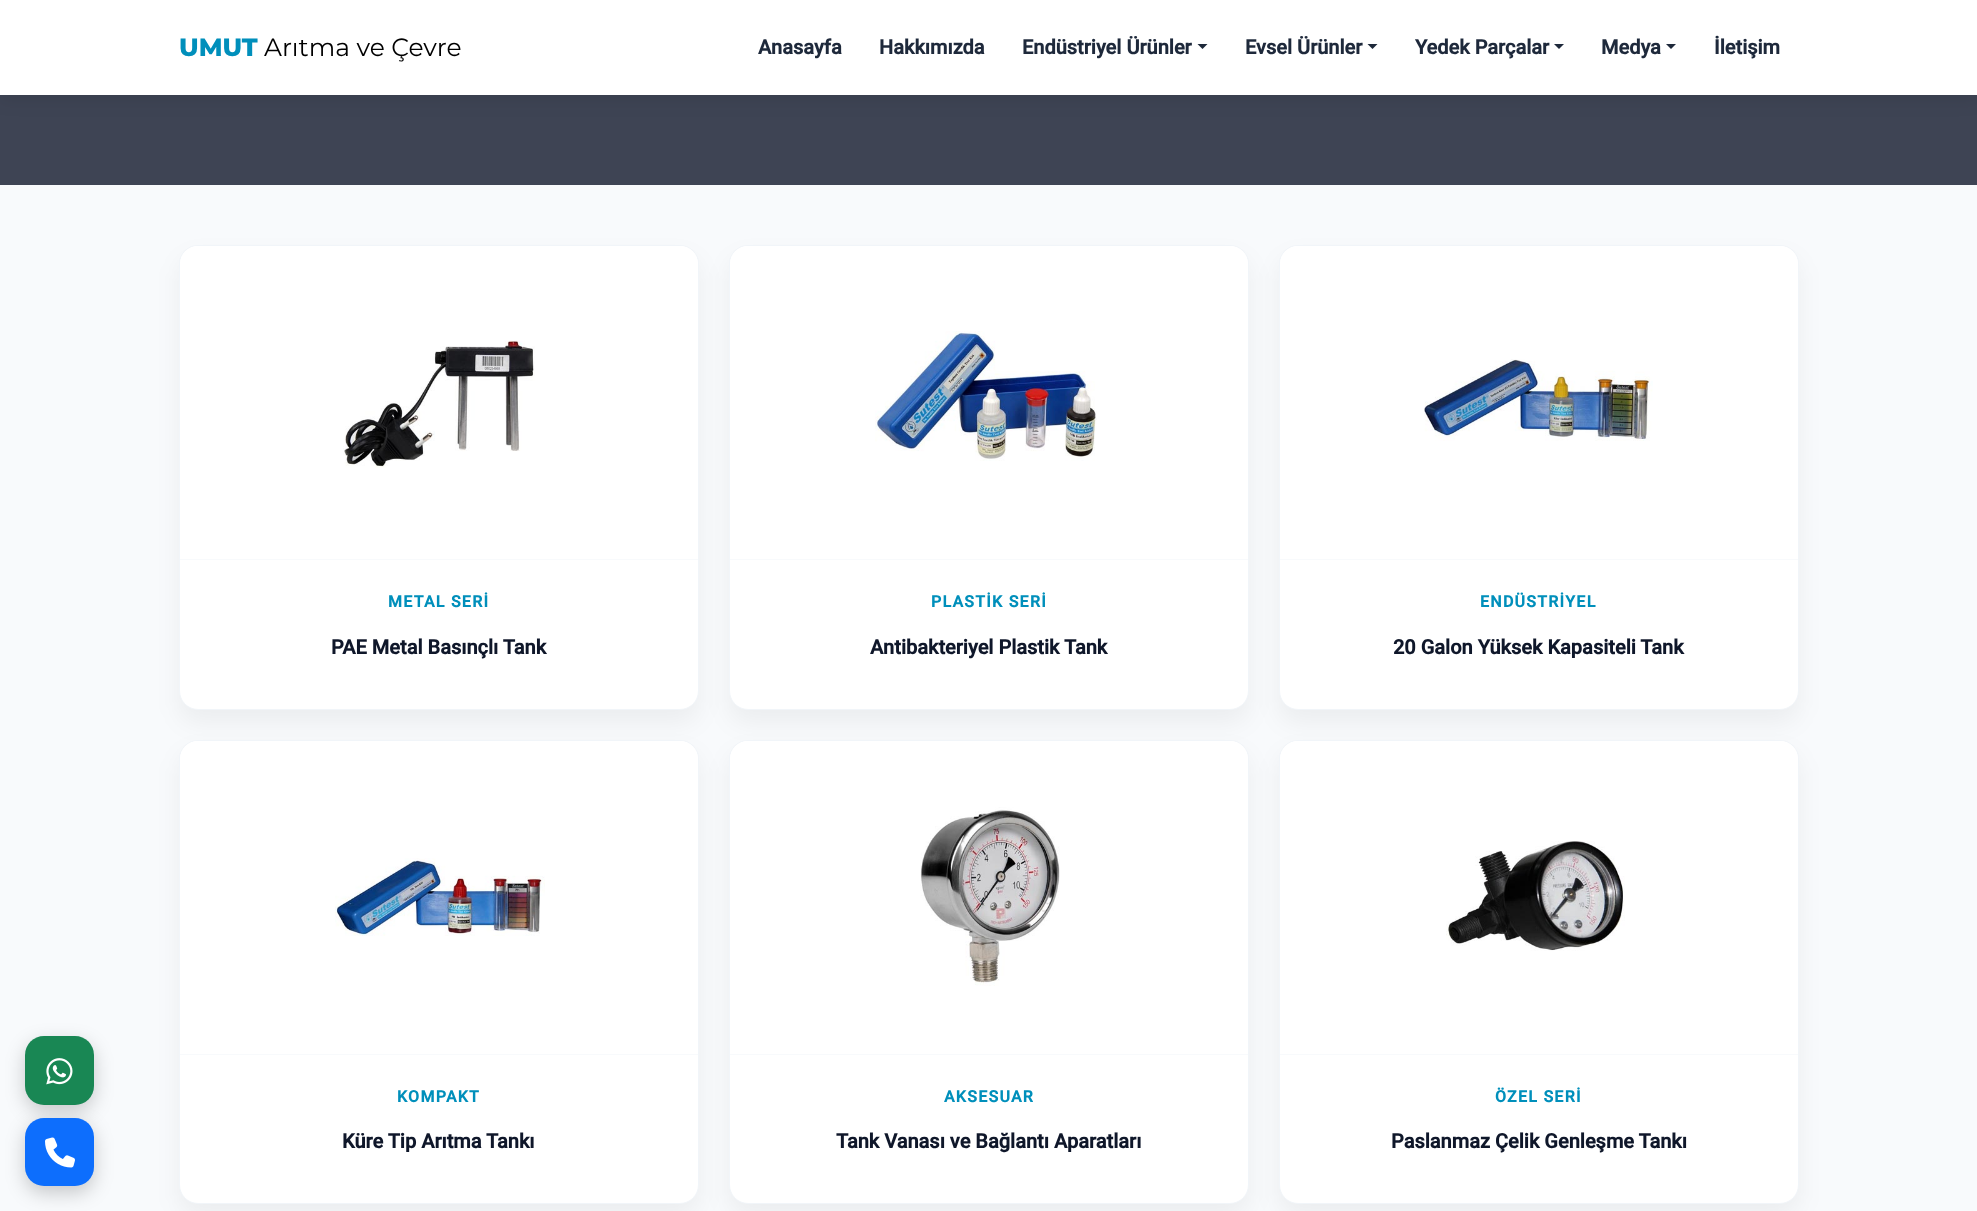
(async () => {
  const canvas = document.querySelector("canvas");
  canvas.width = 1977;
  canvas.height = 1211;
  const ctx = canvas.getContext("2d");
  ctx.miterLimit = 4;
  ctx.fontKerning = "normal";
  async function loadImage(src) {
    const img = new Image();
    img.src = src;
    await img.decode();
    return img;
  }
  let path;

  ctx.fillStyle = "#f8fafc";
  ctx.fillRect(0, 0, 1977, 1211);
  ctx.fillStyle = "#3e4454";
  ctx.fillRect(0, 95, 1977, 90);
  ctx.fillStyle = "rgba(0, 0, 0, 0.1)";
  ctx.filter = "blur(9.5px)";
  ctx.beginPath();
  ctx.rect(0, 3, 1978, 95);
  ctx.fill();
  ctx.filter = "none";
  ctx.fillStyle = "#ffffff";
  ctx.fillRect(0, 0, 1977, 95);
  ctx.fillStyle = "#1e293b";
  path = new Path2D("M1197.5 44H1207.5L1202.5 49Z");
  ctx.fill(path);
  path = new Path2D("M1367.5 44H1377.5L1372.5 49Z");
  ctx.fill(path);
  path = new Path2D("M1554 44H1564L1559 49Z");
  ctx.fill(path);
  path = new Path2D("M1666 44H1676L1671 49Z");
  ctx.fill(path);
  ctx.fillStyle = "rgba(0, 0, 0, 0.2)";
  ctx.filter = "blur(9.5px)";
  ctx.beginPath();
  ctx.roundRect(25, 1043, 69, 68, 19);
  ctx.fill();
  ctx.filter = "none";
  ctx.fillStyle = "#198754";
  ctx.beginPath();
  ctx.roundRect(25, 1036, 69, 69, 19);
  ctx.fill();
  ctx.drawImage(await loadImage("img/1.png"), 46, 1058, 27, 27);
  ctx.fillStyle = "rgba(0, 0, 0, 0.2)";
  ctx.filter = "blur(9.5px)";
  ctx.beginPath();
  ctx.roundRect(25, 1124, 69, 69, 19);
  ctx.fill();
  ctx.filter = "none";
  ctx.fillStyle = "#0d6efd";
  ctx.beginPath();
  ctx.roundRect(25, 1118, 69, 68, 19);
  ctx.fill();
  ctx.drawImage(await loadImage("img/2.png"), 45, 1137, 30, 31);
  ctx.fillStyle = "rgba(0, 0, 0, 0.05)";
  ctx.filter = "blur(12.5px)";
  ctx.beginPath();
  ctx.roundRect(179, 258, 520, 465, 19);
  ctx.fill();
  ctx.filter = "none";
  ctx.fillStyle = "#ffffff";
  ctx.beginPath();
  ctx.roundRect(179.5, 245.5, 519, 464, 18.5);
  ctx.fill();
  ctx.strokeStyle = "#f1f5f9";
  ctx.stroke();
  ctx.beginPath();
  ctx.roundRect(180, 246, 518, 313, [18, 18, 0, 0]);
  ctx.fill();
  ctx.drawImage(await loadImage("img/3.png"), 343, 340, 192, 128);
  ctx.fillStyle = "#f8fafc";
  ctx.fillRect(180, 559, 518, 1);
  ctx.fillStyle = "rgba(0, 0, 0, 0.05)";
  ctx.filter = "blur(12.5px)";
  ctx.beginPath();
  ctx.roundRect(729, 258, 520, 465, 19);
  ctx.fill();
  ctx.filter = "none";
  ctx.fillStyle = "#ffffff";
  ctx.beginPath();
  ctx.roundRect(729.5, 245.5, 519, 464, 18.5);
  ctx.fill();
  ctx.stroke();
  ctx.beginPath();
  ctx.roundRect(730, 246, 518, 313, [18, 18, 0, 0]);
  ctx.fill();
  ctx.drawImage(await loadImage("img/4.png"), 875, 331, 222, 130);
  ctx.fillStyle = "#f8fafc";
  ctx.fillRect(730, 559, 518, 1);
  ctx.fillStyle = "rgba(0, 0, 0, 0.05)";
  ctx.filter = "blur(12.5px)";
  ctx.beginPath();
  ctx.roundRect(1279, 258, 520, 465, 19);
  ctx.fill();
  ctx.filter = "none";
  ctx.fillStyle = "#ffffff";
  ctx.beginPath();
  ctx.roundRect(1279.5, 245.5, 519, 464, 18.5);
  ctx.fill();
  ctx.stroke();
  ctx.beginPath();
  ctx.roundRect(1280, 246, 518, 313, [18, 18, 0, 0]);
  ctx.fill();
  ctx.drawImage(await loadImage("img/5.png"), 1424, 359, 229, 82);
  ctx.fillStyle = "#f8fafc";
  ctx.fillRect(1280, 559, 518, 1);
  ctx.fillStyle = "rgba(0, 0, 0, 0.05)";
  ctx.filter = "blur(12.5px)";
  ctx.beginPath();
  ctx.roundRect(179, 753, 520, 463, 19);
  ctx.fill();
  ctx.filter = "none";
  ctx.fillStyle = "#ffffff";
  ctx.beginPath();
  ctx.roundRect(179.5, 740.5, 519, 463, 18.5);
  ctx.fill();
  ctx.stroke();
  ctx.beginPath();
  ctx.roundRect(180, 741, 518, 313, [18, 18, 0, 0]);
  ctx.fill();
  ctx.drawImage(await loadImage("img/6.png"), 335, 858, 210, 78);
  ctx.fillStyle = "#f8fafc";
  ctx.fillRect(180, 1054, 518, 1);
  ctx.fillStyle = "rgba(0, 0, 0, 0.05)";
  ctx.filter = "blur(12.5px)";
  ctx.beginPath();
  ctx.roundRect(729, 753, 520, 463, 19);
  ctx.fill();
  ctx.filter = "none";
  ctx.fillStyle = "#ffffff";
  ctx.beginPath();
  ctx.roundRect(729.5, 740.5, 519, 463, 18.5);
  ctx.fill();
  ctx.stroke();
  ctx.beginPath();
  ctx.roundRect(730, 741, 518, 313, [18, 18, 0, 0]);
  ctx.fill();
  ctx.drawImage(await loadImage("img/7.png"), 920, 807, 140, 179);
  ctx.fillStyle = "#f8fafc";
  ctx.fillRect(730, 1054, 518, 1);
  ctx.fillStyle = "rgba(0, 0, 0, 0.05)";
  ctx.filter = "blur(12.5px)";
  ctx.beginPath();
  ctx.roundRect(1279, 753, 520, 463, 19);
  ctx.fill();
  ctx.filter = "none";
  ctx.fillStyle = "#ffffff";
  ctx.beginPath();
  ctx.roundRect(1279.5, 740.5, 519, 463, 18.5);
  ctx.fill();
  ctx.stroke();
  ctx.beginPath();
  ctx.roundRect(1280, 741, 518, 313, [18, 18, 0, 0]);
  ctx.fill();
  ctx.drawImage(await loadImage("img/8.png"), 1446, 841, 179, 110);
  ctx.fillStyle = "#f8fafc";
  ctx.fillRect(1280, 1054, 518, 1);
  ctx.font = "800 25px Montserrat";
  ctx.fillStyle = "#008fbb";
  ctx.fillText("UMUT", 179, 56);
  ctx.font = "25px Montserrat";
  ctx.fillStyle = "#000000";
  ctx.fillText("Arıtma ve Çevre", 264, 56);
  ctx.font = "bold 20px Roboto";
  ctx.fillStyle = "#1e293b";
  for (const [text, x, y] of [
    ["Anasayfa", 758, 54],
    ["Hakkımızda", 879, 54],
    ["Endüstriyel Ürünler", 1022, 54],
    ["Evsel Ürünler", 1245, 54],
    ["Yedek Parçalar", 1415, 54],
    ["Medya", 1601, 54],
    ["İletişim", 1714, 54],
  ]) {
    ctx.fillText(text, x, y);
  }
  ctx.letterSpacing = "1.25px";
  ctx.font = "bold 16px Roboto";
  ctx.fillStyle = "#008fbb";
  ctx.fillText("METAL SERİ", 388, 607);
  ctx.letterSpacing = "0px";
  ctx.font = "bold 20px Roboto";
  ctx.fillStyle = "#0f172a";
  ctx.fillText("PAE Metal Basınçlı Tank", 331, 654);
  ctx.letterSpacing = "1.25px";
  ctx.font = "bold 16px Roboto";
  ctx.fillStyle = "#008fbb";
  ctx.fillText("PLASTİK SERİ", 931, 607);
  ctx.letterSpacing = "0px";
  ctx.font = "bold 20px Roboto";
  ctx.fillStyle = "#0f172a";
  ctx.fillText("Antibakteriyel Plastik Tank", 870, 654);
  ctx.letterSpacing = "1.25px";
  ctx.font = "bold 16px Roboto";
  ctx.fillStyle = "#008fbb";
  ctx.fillText("ENDÜSTRİYEL", 1480, 607);
  ctx.letterSpacing = "0px";
  ctx.font = "bold 20px Roboto";
  ctx.fillStyle = "#0f172a";
  ctx.fillText("20 Galon Yüksek Kapasiteli Tank", 1393, 654);
  ctx.letterSpacing = "1.25px";
  ctx.font = "bold 16px Roboto";
  ctx.fillStyle = "#008fbb";
  ctx.fillText("KOMPAKT", 397, 1102);
  ctx.letterSpacing = "0px";
  ctx.font = "bold 20px Roboto";
  ctx.fillStyle = "#0f172a";
  ctx.fillText("Küre Tip Arıtma Tankı", 342, 1148);
  ctx.letterSpacing = "1.25px";
  ctx.font = "bold 16px Roboto";
  ctx.fillStyle = "#008fbb";
  ctx.fillText("AKSESUAR", 944, 1102);
  ctx.letterSpacing = "0px";
  ctx.font = "bold 20px Roboto";
  ctx.fillStyle = "#0f172a";
  ctx.fillText("Tank Vanası ve Bağlantı Aparatları", 836, 1148);
  ctx.letterSpacing = "1.25px";
  ctx.font = "bold 16px Roboto";
  ctx.fillStyle = "#008fbb";
  ctx.fillText("ÖZEL SERİ", 1495, 1102);
  ctx.letterSpacing = "0px";
  ctx.font = "bold 20px Roboto";
  ctx.fillStyle = "#0f172a";
  ctx.fillText("Paslanmaz Çelik Genleşme Tankı", 1391, 1148);
})();
